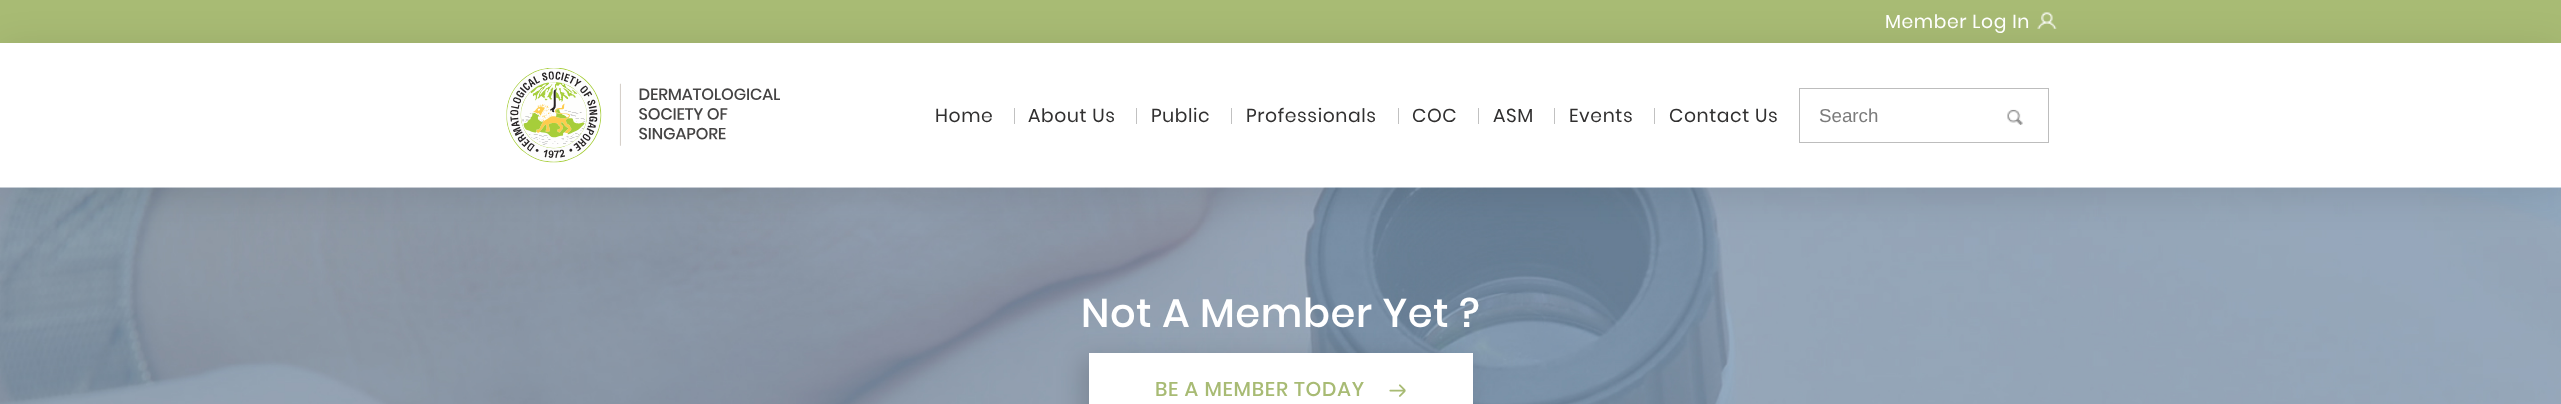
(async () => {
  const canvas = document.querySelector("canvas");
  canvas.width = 2561;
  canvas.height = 404;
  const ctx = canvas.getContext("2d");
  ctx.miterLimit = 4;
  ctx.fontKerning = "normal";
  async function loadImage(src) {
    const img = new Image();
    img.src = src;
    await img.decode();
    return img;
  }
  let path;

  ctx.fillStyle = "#ffffff";
  ctx.fillRect(0, 0, 2561, 404);
  ctx.fillStyle = "#a8bb74";
  ctx.fillRect(0, 0, 2561, 43);
  ctx.drawImage(await loadImage("img/1.png"), 2037, 12, 20, 17);
  ctx.drawImage(await loadImage("img/4.png"), 0, 187, 2561, 217);
  ctx.save();
  path = new Path2D("M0 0H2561V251H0ZM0 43H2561V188H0Z");
  ctx.clip(path, "evenodd");
  ctx.fillStyle = "rgba(0, 0, 0, 0.1)";
  ctx.filter = "blur(19px)";
  ctx.beginPath();
  ctx.rect(0, 48, 2561, 145);
  ctx.fill();
  ctx.filter = "none";
  ctx.restore();
  ctx.drawImage(await loadImage("img/2.png"), 506, 68, 274, 95);
  for (const [x, y, w, h, color] of [
    [1014, 108, 1, 16, "#c1c1c1"],
    [1136, 108, 1, 16, "#c1c1c1"],
    [1231, 108, 1, 16, "#c1c1c1"],
    [1398, 108, 1, 16, "#c1c1c1"],
    [1478, 108, 1, 16, "#c1c1c1"],
    [1554, 108, 1, 16, "#c1c1c1"],
    [1654, 108, 1, 16, "#c1c1c1"],
  ]) {
    ctx.fillStyle = color;
    ctx.fillRect(x, y, w, h);
  }
  ctx.strokeStyle = "#bdbdbd";
  ctx.strokeRect(1799.5, 88.5, 249, 54);
  ctx.drawImage(await loadImage("img/3.png"), 2007, 109, 16, 16);
  ctx.fillStyle = "rgba(0, 0, 0, 0.15)";
  ctx.filter = "blur(12.5px)";
  ctx.beginPath();
  ctx.rect(1081, 358, 384, 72);
  ctx.fill();
  ctx.filter = "none";
  ctx.fillStyle = "#ffffff";
  ctx.fillRect(1089, 353, 384, 51);
  ctx.drawImage(await loadImage("img/5.png"), 1389, 384, 17, 13);
  ctx.letterSpacing = "0.6px";
  ctx.font = "18.75px Poppins";
  ctx.fillText("Member Log In", 1885, 28);
  ctx.fillStyle = "#313030";
  for (const [text, x, y] of [
    ["Home", 935, 122],
    ["About Us", 1028, 122],
    ["Public", 1151, 122],
    ["Professionals", 1246, 122],
    ["COC", 1412, 122],
    ["ASM", 1493, 122],
    ["Events", 1569, 122],
    ["Contact Us", 1669, 122],
  ]) {
    ctx.fillText(text, x, y);
  }
  ctx.letterSpacing = "0px";
  ctx.font = "18.75px Liberation Sans";
  ctx.fillStyle = "#7b7b7b";
  ctx.fillText("Search", 1819, 122);
  ctx.letterSpacing = "0.6px";
  ctx.font = "500 40px Poppins";
  ctx.fillStyle = "#ffffff";
  ctx.fillText("Not A Member Yet ?", 1081, 327);
  ctx.letterSpacing = "0.75px";
  ctx.font = "500 20px Poppins";
  ctx.fillStyle = "#a8bb74";
  ctx.fillText("BE A MEMBER TODAY", 1155, 396);
})();
